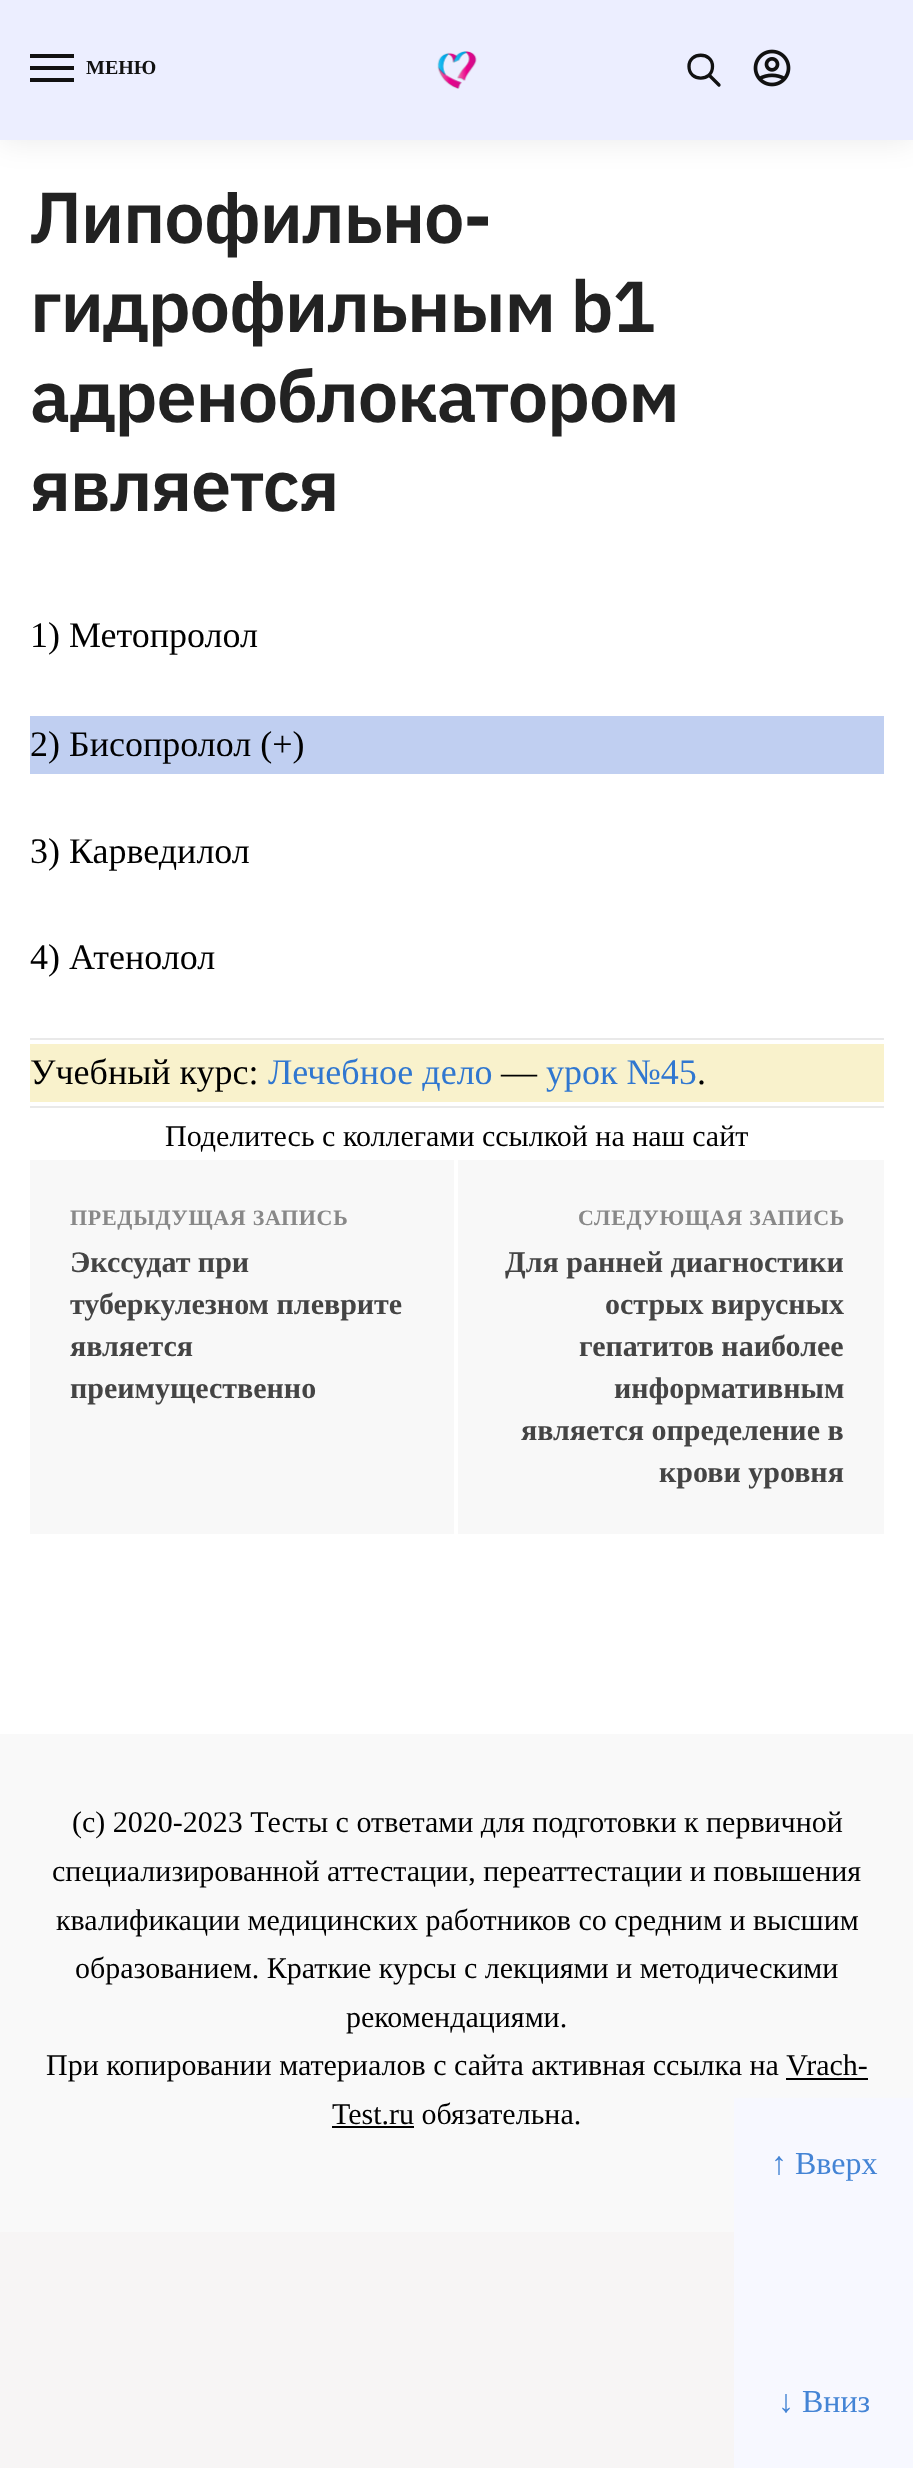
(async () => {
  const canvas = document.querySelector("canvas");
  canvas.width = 913;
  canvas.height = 2468;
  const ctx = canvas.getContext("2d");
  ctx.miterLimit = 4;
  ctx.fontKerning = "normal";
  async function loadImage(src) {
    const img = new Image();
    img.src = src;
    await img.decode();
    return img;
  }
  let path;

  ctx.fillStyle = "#f7f5f5";
  ctx.fillRect(0, 0, 913, 2468);
  ctx.fillStyle = "#ffffff";
  ctx.fillRect(0, 140, 913, 1594);
  ctx.fillStyle = "rgba(0, 0, 0, 0.08)";
  ctx.filter = "blur(15px)";
  ctx.beginPath();
  ctx.rect(0, 2, 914, 140);
  ctx.fill();
  ctx.filter = "none";
  for (const [x, y, w, h, color] of [
    [0, 0, 913, 140, "#eceeff"],
    [30, 54, 44, 4, "#111111"],
    [30, 66, 44, 4, "#111111"],
    [30, 78, 44, 4, "#111111"],
  ]) {
    ctx.fillStyle = color;
    ctx.fillRect(x, y, w, h);
  }
  ctx.drawImage(await loadImage("img/1.png"), 437, 51, 40, 38);
  path = new Path2D("M719 85L709 75M712.5 66.5C712.5 82 689 82 689 66.5C689 51.5 712.5 51.5 712.5 66.5Z");
  ctx.strokeStyle = "#111111";
  ctx.lineWidth = 3.3;
  ctx.lineCap = "round";
  ctx.lineJoin = "round";
  ctx.stroke(path);
  ctx.drawImage(await loadImage("img/2.png"), 753, 49, 38, 38);
  for (const [x, y, w, h, color] of [
    [30, 716, 854, 58, "#c0cff1"],
    [30, 1038, 854, 2, "#e9e9e9"],
    [30, 1044, 854, 58, "#f9f2cc"],
    [30, 1106, 854, 2, "#e9e9e9"],
    [30, 1160, 854, 374, "#f8f8f8"],
    [454, 1160, 4, 374, "#ffffff"],
    [0, 1734, 913, 498, "#f9f9f9"],
    [786, 2078, 82, 2, "#000000"],
    [332, 2126, 82, 2, "#000000"],
    [734, 2098, 179, 370, "#f7f8ff"],
  ]) {
    ctx.fillStyle = color;
    ctx.fillRect(x, y, w, h);
  }
  ctx.font = "bold 20px Liberation Serif";
  ctx.fillStyle = "#111111";
  ctx.fillText("МЕНЮ", 86, 74);
  ctx.letterSpacing = "-1.25px";
  ctx.font = "600 72px IBM Plex Sans";
  ctx.fillStyle = "#222222";
  for (const [text, x, y] of [
    ["Липофильно-", 30, 243],
    ["гидрофильным b1", 30, 332],
    ["адреноблокатором", 30, 422],
    ["является", 30, 511],
  ]) {
    ctx.fillText(text, x, y);
  }
  ctx.letterSpacing = "0px";
  ctx.font = "36px Liberation Serif";
  ctx.fillStyle = "#000000";
  for (const [text, x, y] of [
    ["1) Метопролол", 30, 647],
    ["2) Бисопролол (+)", 30, 756],
    ["3) Карведилол", 30, 863],
    ["4) Атенолол", 30, 969],
    ["Учебный курс:", 30, 1084],
  ]) {
    ctx.fillText(text, x, y);
  }
  ctx.fillStyle = "#3077d0";
  ctx.fillText("Лечебное дело", 268, 1084);
  ctx.fillStyle = "#000000";
  ctx.fillText("—", 501, 1084);
  ctx.fillStyle = "#3077d0";
  ctx.fillText("урок №45", 546, 1084);
  ctx.fillStyle = "#000000";
  ctx.fillText(".", 697, 1084);
  ctx.font = "30px Liberation Serif";
  ctx.fillText("Поделитесь с коллегами ссылкой на наш сайт", 165, 1146);
  ctx.letterSpacing = "0.7px";
  ctx.font = "bold 22px Liberation Serif";
  ctx.fillStyle = "#888888";
  ctx.fillText("ПРЕДЫДУЩАЯ ЗАПИСЬ", 70, 1225);
  ctx.letterSpacing = "0px";
  ctx.font = "bold 30px Liberation Serif";
  ctx.fillStyle = "#444444";
  for (const [text, x, y] of [
    ["Экссудат при", 70, 1272],
    ["туберкулезном плеврите", 70, 1314],
    ["является", 70, 1356],
    ["преимущественно", 70, 1398],
  ]) {
    ctx.fillText(text, x, y);
  }
  ctx.letterSpacing = "0.7px";
  ctx.font = "bold 22px Liberation Serif";
  ctx.fillStyle = "#888888";
  ctx.fillText("СЛЕДУЮЩАЯ ЗАПИСЬ", 578, 1225);
  ctx.letterSpacing = "0px";
  ctx.font = "bold 30px Liberation Serif";
  ctx.fillStyle = "#444444";
  for (const [text, x, y] of [
    ["Для ранней диагностики", 505, 1272],
    ["острых вирусных", 605, 1314],
    ["гепатитов наиболее", 579, 1356],
    ["информативным", 614, 1398],
    ["является определение в", 521, 1440],
    ["крови уровня", 659, 1482],
  ]) {
    ctx.fillText(text, x, y);
  }
  ctx.font = "30px Liberation Serif";
  ctx.fillStyle = "#000000";
  for (const [text, x, y] of [
    ["(c) 2020-2023 Тесты с ответами для подготовки к первичной", 72, 1832],
    ["специализированной аттестации, переаттестации и повышения", 52, 1881],
    ["квалификации медицинских работников со средним и высшим", 56, 1930],
    ["образованием. Краткие курсы с лекциями и методическими", 75, 1978],
    ["рекомендациями.", 346, 2027],
    ["При копировании материалов с сайта активная ссылка на Vrach-", 46, 2075],
    ["Test.ru обязательна.", 332, 2124],
  ]) {
    ctx.fillText(text, x, y);
  }
  ctx.font = "32px Liberation Serif";
  ctx.fillStyle = "#4484d5";
  ctx.fillText("↑ Вверх", 771, 2174);
  ctx.fillText("↓ Вниз", 778, 2412);
})();
